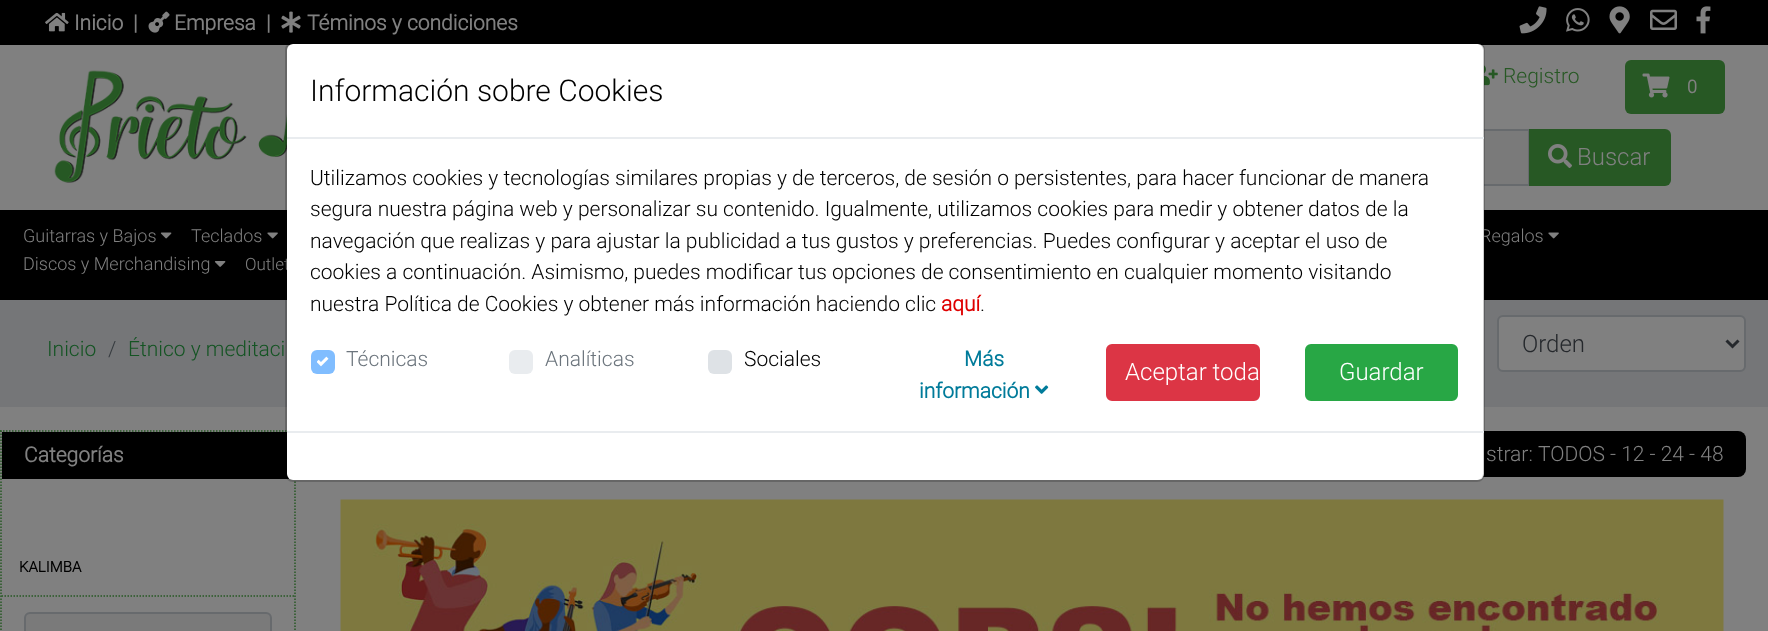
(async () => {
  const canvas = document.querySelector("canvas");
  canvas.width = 1768;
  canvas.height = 631;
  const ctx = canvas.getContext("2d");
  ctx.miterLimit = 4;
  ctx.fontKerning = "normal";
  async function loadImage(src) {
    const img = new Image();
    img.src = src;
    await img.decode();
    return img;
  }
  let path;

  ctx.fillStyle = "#808080";
  ctx.fillRect(0, 0, 1768, 631);
  ctx.fillStyle = "#000000";
  ctx.fillRect(0, 0, 1768, 45);
  ctx.drawImage(await loadImage("img/1.png"), 45, 12, 24, 20);
  ctx.drawImage(await loadImage("img/2.png"), 148, 11, 22, 22);
  ctx.drawImage(await loadImage("img/3.png"), 281, 11, 20, 22);
  ctx.drawImage(await loadImage("img/4.png"), 1519, 6, 28, 28);
  ctx.drawImage(await loadImage("img/5.png"), 1566, 8, 24, 24);
  ctx.drawImage(await loadImage("img/6.png"), 1609, 6, 21, 28);
  ctx.drawImage(await loadImage("img/7.png"), 1650, 9, 27, 21);
  ctx.drawImage(await loadImage("img/8.png"), 1696, 6, 15, 28);
  ctx.drawImage(await loadImage("img/11.png"), 54, 70, 233, 113);
  ctx.drawImage(await loadImage("img/12.png"), 1484, 65, 14, 21);
  ctx.fillStyle = "#275824";
  ctx.beginPath();
  ctx.roundRect(1625, 60, 100, 54, 6);
  ctx.fill();
  ctx.drawImage(await loadImage("img/13.png"), 1642, 73, 28, 25);
  ctx.fillStyle = "#7a7a7a";
  ctx.fillRect(1484, 131, 44, 53);
  ctx.strokeStyle = "#676a6d";
  ctx.lineWidth = 2;
  ctx.strokeRect(931, 130, 598, 55);
  ctx.fillStyle = "#275824";
  ctx.beginPath();
  ctx.roundRect(1529, 129, 142, 57, [0, 6, 6, 0]);
  ctx.fill();
  ctx.drawImage(await loadImage("img/14.png"), 1548, 144, 24, 24);
  ctx.fillStyle = "#000000";
  ctx.fillRect(0, 210, 1768, 90);
  ctx.drawImage(await loadImage("img/15.png"), 160, 232, 12, 7);
  ctx.drawImage(await loadImage("img/16.png"), 267, 232, 11, 7);
  ctx.drawImage(await loadImage("img/16.png"), 1548, 232, 11, 7);
  ctx.drawImage(await loadImage("img/17.png"), 214, 261, 12, 6);
  ctx.fillStyle = "#757678";
  ctx.fillRect(0, 300, 287, 107);
  ctx.fillRect(1484, 300, 284, 107);
  ctx.fillStyle = "#808080";
  ctx.beginPath();
  ctx.roundRect(1498, 316, 247, 55, 5);
  ctx.fill();
  ctx.stroke();
  path = new Path2D("M1726.5 340.5L1732.5 346.5L1738.5 340.5");
  ctx.strokeStyle = "#25282c";
  ctx.lineWidth = 3;
  ctx.stroke(path);
  path = new Path2D("M0 431H295.5");
  ctx.strokeStyle = "#275824";
  ctx.lineWidth = 1.5;
  ctx.setLineDash([1.5, 1.5]);
  ctx.stroke(path);
  path = new Path2D("M295 430.5V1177.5");
  ctx.stroke(path);
  path = new Path2D("M1 430.5V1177.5");
  ctx.stroke(path);
  ctx.fillStyle = "#000000";
  ctx.fillRect(2, 432, 288, 47);
  path = new Path2D("M1.5 596H294");
  ctx.stroke(path);
  ctx.fillStyle = "#7a7a7a";
  ctx.beginPath();
  ctx.roundRect(25, 613, 246, 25, 5);
  ctx.fill();
  ctx.strokeStyle = "#676a6d";
  ctx.lineWidth = 2;
  ctx.setLineDash([]);
  ctx.stroke();
  ctx.fillStyle = "#000000";
  ctx.beginPath();
  ctx.roundRect(318, 431, 1428, 46, 8);
  ctx.fill();
  ctx.drawImage(await loadImage("img/18.png"), 340, 499, 1384, 132);
  ctx.font = "bold 21px Roboto";
  ctx.fillStyle = "#808080";
  for (const [text, x, y] of [
    ["Inicio", 74, 30],
    ["|", 133, 30],
    ["Empresa", 174, 30],
    ["|", 266, 30],
    ["Téminos y condiciones", 307, 30],
  ]) {
    ctx.fillText(text, x, y);
  }
  ctx.font = "300 21px Roboto";
  ctx.fillStyle = "#275824";
  ctx.fillText("Registro", 1503, 83);
  ctx.font = "bold 18px Roboto";
  ctx.fillStyle = "#808080";
  ctx.fillText("0", 1687, 93);
  ctx.font = "300 24px Roboto";
  ctx.fillText("Buscar", 1577, 165);
  ctx.font = "300 18px Roboto";
  for (const [text, x, y] of [
    ["Guitarras y Bajos", 23, 242],
    ["Teclados", 191, 242],
    ["Regalos", 1480, 242],
    ["Discos y Merchandising", 23, 270],
  ]) {
    ctx.fillText(text, x, y);
  }
  ctx.font = "300 17px Roboto";
  ctx.fillText("Outlet", 245, 270);
  ctx.fillStyle = "#ffffff";
  ctx.beginPath();
  ctx.roundRect(287, 44, 1197, 436, 6);
  ctx.fill();
  ctx.beginPath();
  ctx.roundRect(286, 43, 1198, 438, 7);
  ctx.strokeStyle = "rgba(0, 0, 0, 0.2)";
  ctx.stroke();
  ctx.fillStyle = "#28a745";
  ctx.beginPath();
  ctx.roundRect(1306, 345, 151, 55, 5);
  ctx.fill();
  ctx.strokeStyle = "#28a745";
  ctx.stroke();
  ctx.font = "300 24px Roboto";
  ctx.fillStyle = "#ffffff";
  ctx.fillText("Guardar", 1339, 380);
  ctx.fillStyle = "#dc3545";
  ctx.beginPath();
  ctx.roundRect(1107, 345, 152, 55, 5);
  ctx.fill();
  ctx.strokeStyle = "#dc3545";
  ctx.stroke();
  ctx.fillStyle = "#ffffff";
  ctx.fillText("Aceptar toda", 1125, 380);
  ctx.drawImage(await loadImage("img/10.png"), 1035, 385, 14, 9);
  ctx.font = "bold 21px Roboto";
  ctx.fillStyle = "#007b9a";
  ctx.fillText("información", 919, 398);
  ctx.fillText("Más", 964, 366);
  ctx.fillStyle = "#dee2e6";
  ctx.beginPath();
  ctx.roundRect(708, 350, 24, 24, 6);
  ctx.fill();
  ctx.font = "300 21px Roboto";
  ctx.fillStyle = "#000000";
  ctx.fillText("Sociales", 744, 366);
  ctx.fillStyle = "#e9ecef";
  ctx.beginPath();
  ctx.roundRect(509, 350, 24, 24, 6);
  ctx.fill();
  ctx.fillStyle = "#6c757d";
  ctx.fillText("Analíticas", 545, 366);
  ctx.fillStyle = "#80bdff";
  ctx.beginPath();
  ctx.roundRect(311, 350, 24, 24, 6);
  ctx.fill();
  ctx.drawImage(await loadImage("img/9.png"), 317, 356, 12, 11);
  ctx.fillStyle = "#6c757d";
  ctx.fillText("Técnicas", 346, 366);
  ctx.fillStyle = "#000000";
  ctx.fillText(".", 980, 311);
  ctx.font = "bold 21px Roboto";
  ctx.fillStyle = "#df0000";
  ctx.fillText("aquí", 941, 311);
  ctx.font = "300 21px Roboto";
  ctx.fillStyle = "#000000";
  for (const [text, x, y] of [
    ["nuestra Política de Cookies y obtener más información haciendo clic", 310, 311],
    ["cookies a continuación. Asimismo, puedes modificar tus opciones de consentimiento en cualquier momento visitando", 310, 279],
    ["navegación que realizas y para ajustar la publicidad a tus gustos y preferencias. Puedes configurar y aceptar el uso de", 310, 248],
    ["segura nuestra página web y personalizar su contenido. Igualmente, utilizamos cookies para medir y obtener datos de la", 310, 216],
    ["Utilizamos cookies y tecnologías similares propias y de terceros, de sesión o persistentes, para hacer funcionar de manera", 310, 185],
  ]) {
    ctx.fillText(text, x, y);
  }
  ctx.fillStyle = "#e9ecef";
  ctx.fillRect(287, 431, 1197, 2);
  ctx.font = "300 30px Roboto";
  ctx.fillStyle = "#000000";
  ctx.fillText("Información sobre Cookies", 310, 101);
  ctx.fillStyle = "#e9ecef";
  ctx.fillRect(287, 137, 1197, 2);
  ctx.font = "300 21px Roboto";
  ctx.fillStyle = "#145423";
  ctx.fillText("Inicio", 47, 356);
  ctx.fillStyle = "#363b3f";
  ctx.fillText("/", 108, 356);
  ctx.fillStyle = "#145423";
  ctx.fillText("Étnico y meditaci", 128, 356);
  ctx.font = "300 24px Roboto";
  ctx.fillStyle = "#25282c";
  ctx.fillText("Orden", 1522, 352);
  ctx.font = "bold 21px Roboto";
  ctx.fillStyle = "#808080";
  ctx.fillText("Categorías", 24, 462);
  ctx.font = "bold 15px Roboto";
  ctx.fillStyle = "#000000";
  ctx.fillText("KALIMBA", 19, 572);
  ctx.font = "300 21px Roboto";
  ctx.fillStyle = "#808080";
  ctx.fillText("strar:", 1486, 461);
  ctx.fillText("TODOS - 12 - 24 - 48", 1538, 461);
})();
